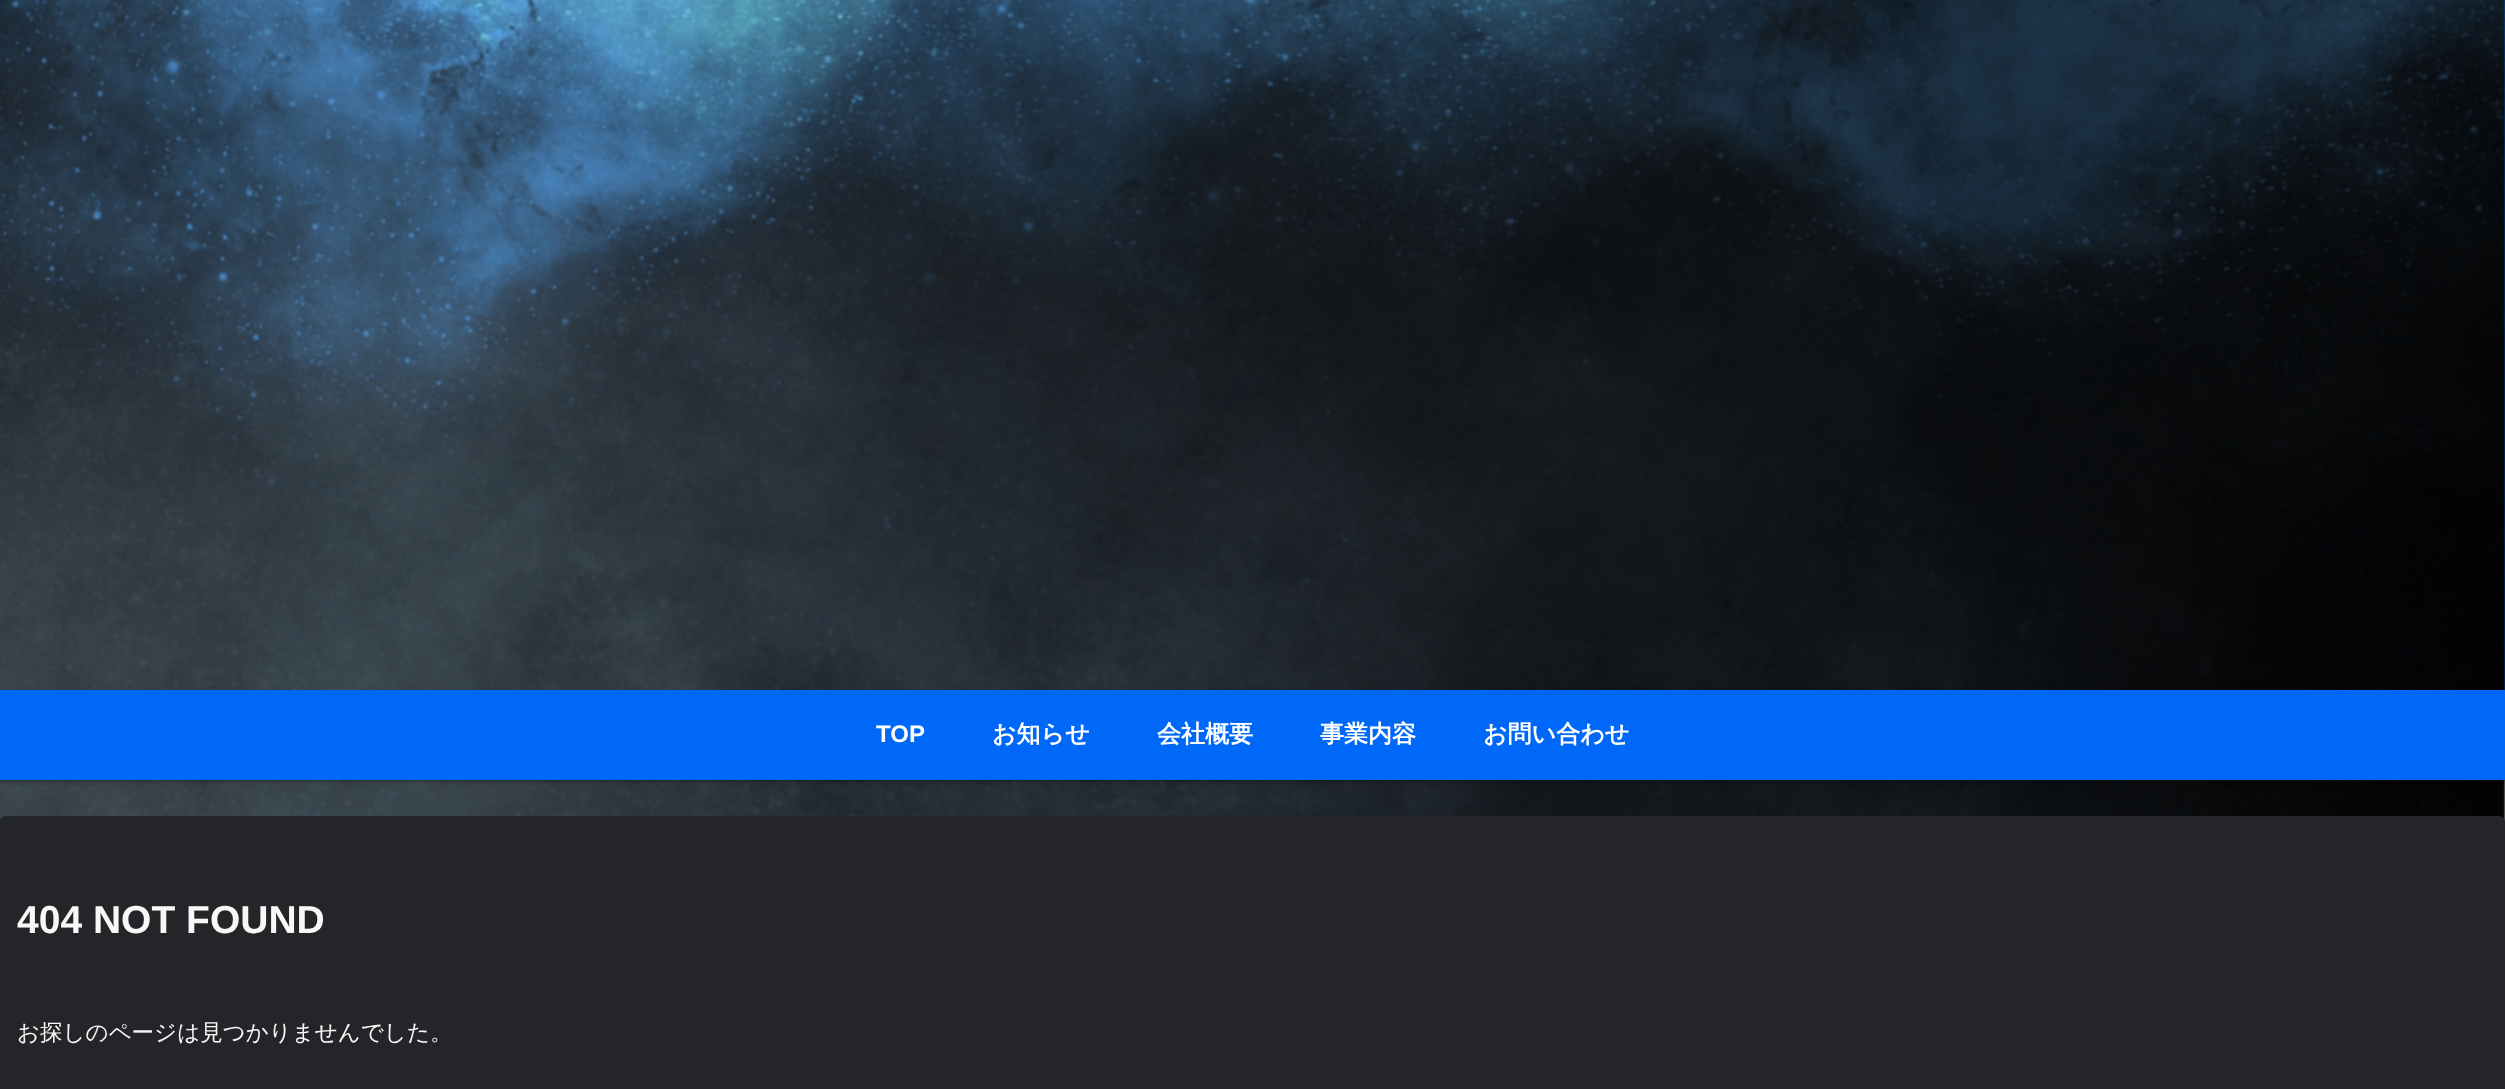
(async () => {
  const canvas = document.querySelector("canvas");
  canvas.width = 2505;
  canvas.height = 1089;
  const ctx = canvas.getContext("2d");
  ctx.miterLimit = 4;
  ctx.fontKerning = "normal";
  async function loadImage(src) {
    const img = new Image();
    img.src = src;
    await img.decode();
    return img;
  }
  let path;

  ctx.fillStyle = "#ffffff";
  ctx.fillRect(0, 0, 2505, 1089);
  ctx.drawImage(await loadImage("img/1.png"), 0, 780, 2505, 42);
  ctx.fillStyle = "#0068f9";
  ctx.fillRect(0, 0, 2505, 780);
  ctx.drawImage(await loadImage("img/2.png"), 0, 0, 2505, 690);
  ctx.save();
  path = new Path2D("M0 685H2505V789H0ZM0 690H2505V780H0Z");
  ctx.clip(path, "evenodd");
  ctx.fillStyle = "rgba(0, 0, 0, 0.25)";
  ctx.filter = "blur(2px)";
  ctx.beginPath();
  ctx.rect(0, 692, 2505, 90);
  ctx.fill();
  ctx.filter = "none";
  ctx.restore();
  ctx.fillStyle = "#242529";
  ctx.beginPath();
  ctx.roundRect(0, 816, 2505, 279, 6);
  ctx.fill();
  ctx.font = "bold 24px Liberation Sans";
  ctx.fillStyle = "#ffffff";
  ctx.fillText("TOP", 876, 742);
  ctx.font = "bold 24px WenQuanYi Zen Hei";
  for (const [text, x, y] of [
    ["お知らせ", 992, 742],
    ["会社概要", 1157, 742],
    ["事業内容", 1320, 742],
    ["お問い合わせ", 1483, 742],
  ]) {
    ctx.fillText(text, x, y);
  }
  ctx.font = "bold 39px Liberation Sans";
  ctx.fillStyle = "#faf8f7";
  ctx.fillText("404 NOT FOUND", 17, 933);
  ctx.font = "500 22.5px WenQuanYi Zen Hei";
  ctx.fillText("お探しのページは見つかりませんでした。", 17, 1040);
})();
